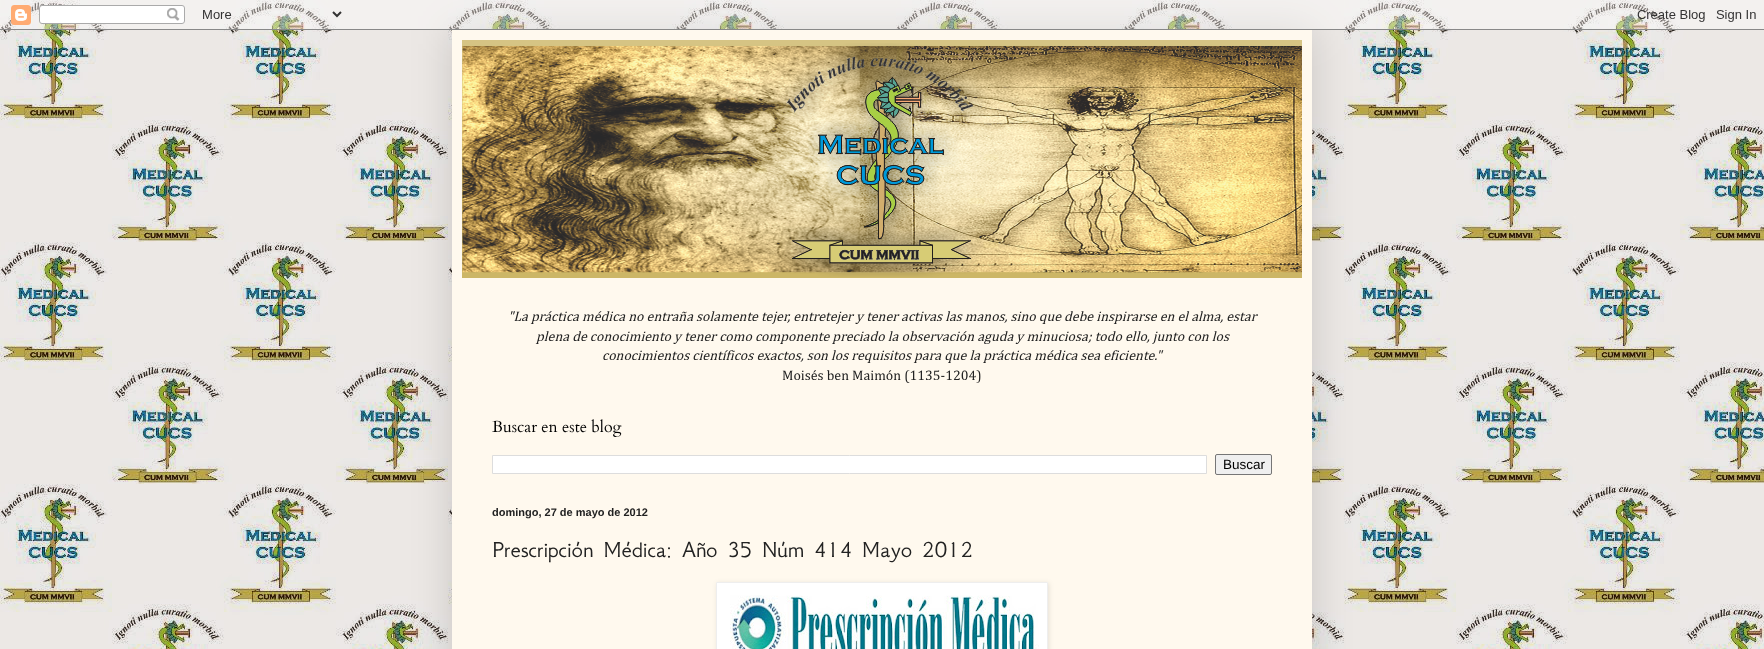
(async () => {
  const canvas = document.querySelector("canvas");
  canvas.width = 1764;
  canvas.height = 649;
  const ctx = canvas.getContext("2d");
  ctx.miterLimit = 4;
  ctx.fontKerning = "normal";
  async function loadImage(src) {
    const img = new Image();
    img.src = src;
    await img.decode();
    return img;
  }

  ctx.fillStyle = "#ffffff";
  ctx.fillRect(0, 0, 1764, 649);
  ctx.drawImage(await loadImage("img/1.png"), 0, 0, 1764, 649);
  ctx.fillStyle = "rgba(0, 0, 0, 0.15)";
  ctx.filter = "blur(20px)";
  ctx.beginPath();
  ctx.rect(452, 30, 860, 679);
  ctx.fill();
  ctx.filter = "none";
  ctx.drawImage(await loadImage("img/2.png"), 0, 0, 1764, 30);
  ctx.fillStyle = "#fff9ee";
  ctx.fillRect(452, 30, 860, 619);
  ctx.fillStyle = "#ccb666";
  ctx.fillRect(462, 40, 840, 238);
  ctx.drawImage(await loadImage("img/3.png"), 462, 40, 840, 130);
  ctx.drawImage(await loadImage("img/4.png"), 462, 43, 840, 234);
  ctx.fillStyle = "#ffffff";
  ctx.beginPath();
  ctx.rect(492.5, 455.5, 714, 18);
  ctx.fill();
  ctx.strokeStyle = "#dddddd";
  ctx.stroke();
  ctx.fillStyle = "#efefef";
  ctx.beginPath();
  ctx.roundRect(1215.5, 454.5, 56, 20, 1.5);
  ctx.fill();
  ctx.strokeStyle = "#767676";
  ctx.stroke();
  ctx.fillStyle = "rgba(0, 0, 0, 0.1)";
  ctx.filter = "blur(2.5px)";
  ctx.beginPath();
  ctx.rect(717, 583, 332, 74);
  ctx.fill();
  ctx.filter = "none";
  ctx.fillStyle = "#ffffff";
  ctx.beginPath();
  ctx.rect(716.5, 582.5, 331, 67);
  ctx.fill();
  ctx.strokeStyle = "#eeeeee";
  ctx.stroke();
  ctx.drawImage(await loadImage("img/5.png"), 730, 595, 309, 54);
  ctx.font = "italic 14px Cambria";
  ctx.fillStyle = "#222222";
  for (const [text, x, y] of [
    ["\"La práctica médica no entraña solamente tejer, entretejer y tener activas las manos, sino que debe inspirarse en el alma, estar", 508, 321],
    ["plena de conocimiento y tener como componente preciado la observación aguda y minuciosa; todo ello, junto con los", 536, 341],
    ["conocimientos científicos exactos, son los requisitos para que la práctica médica sea eficiente.\"", 602, 360],
  ]) {
    ctx.fillText(text, x, y);
  }
  ctx.font = "14px Cambria";
  ctx.fillText("Moisés ben Maimón (1135-1204)", 782, 380);
  ctx.font = "16px Cardo";
  ctx.fillStyle = "#000000";
  ctx.fillText("Buscar en este blog", 492, 432);
  ctx.font = "13.5px Liberation Sans";
  ctx.fillText("Buscar", 1223, 469);
  ctx.font = "bold 11px Liberation Sans";
  ctx.fillStyle = "#222222";
  ctx.fillText("domingo, 27 de mayo de 2012", 492, 516);
  ctx.font = "24px GFS Neohellenic";
  ctx.fillText("Prescripción Médica: Año 35 Núm 414 Mayo 2012", 492, 557);
})();
